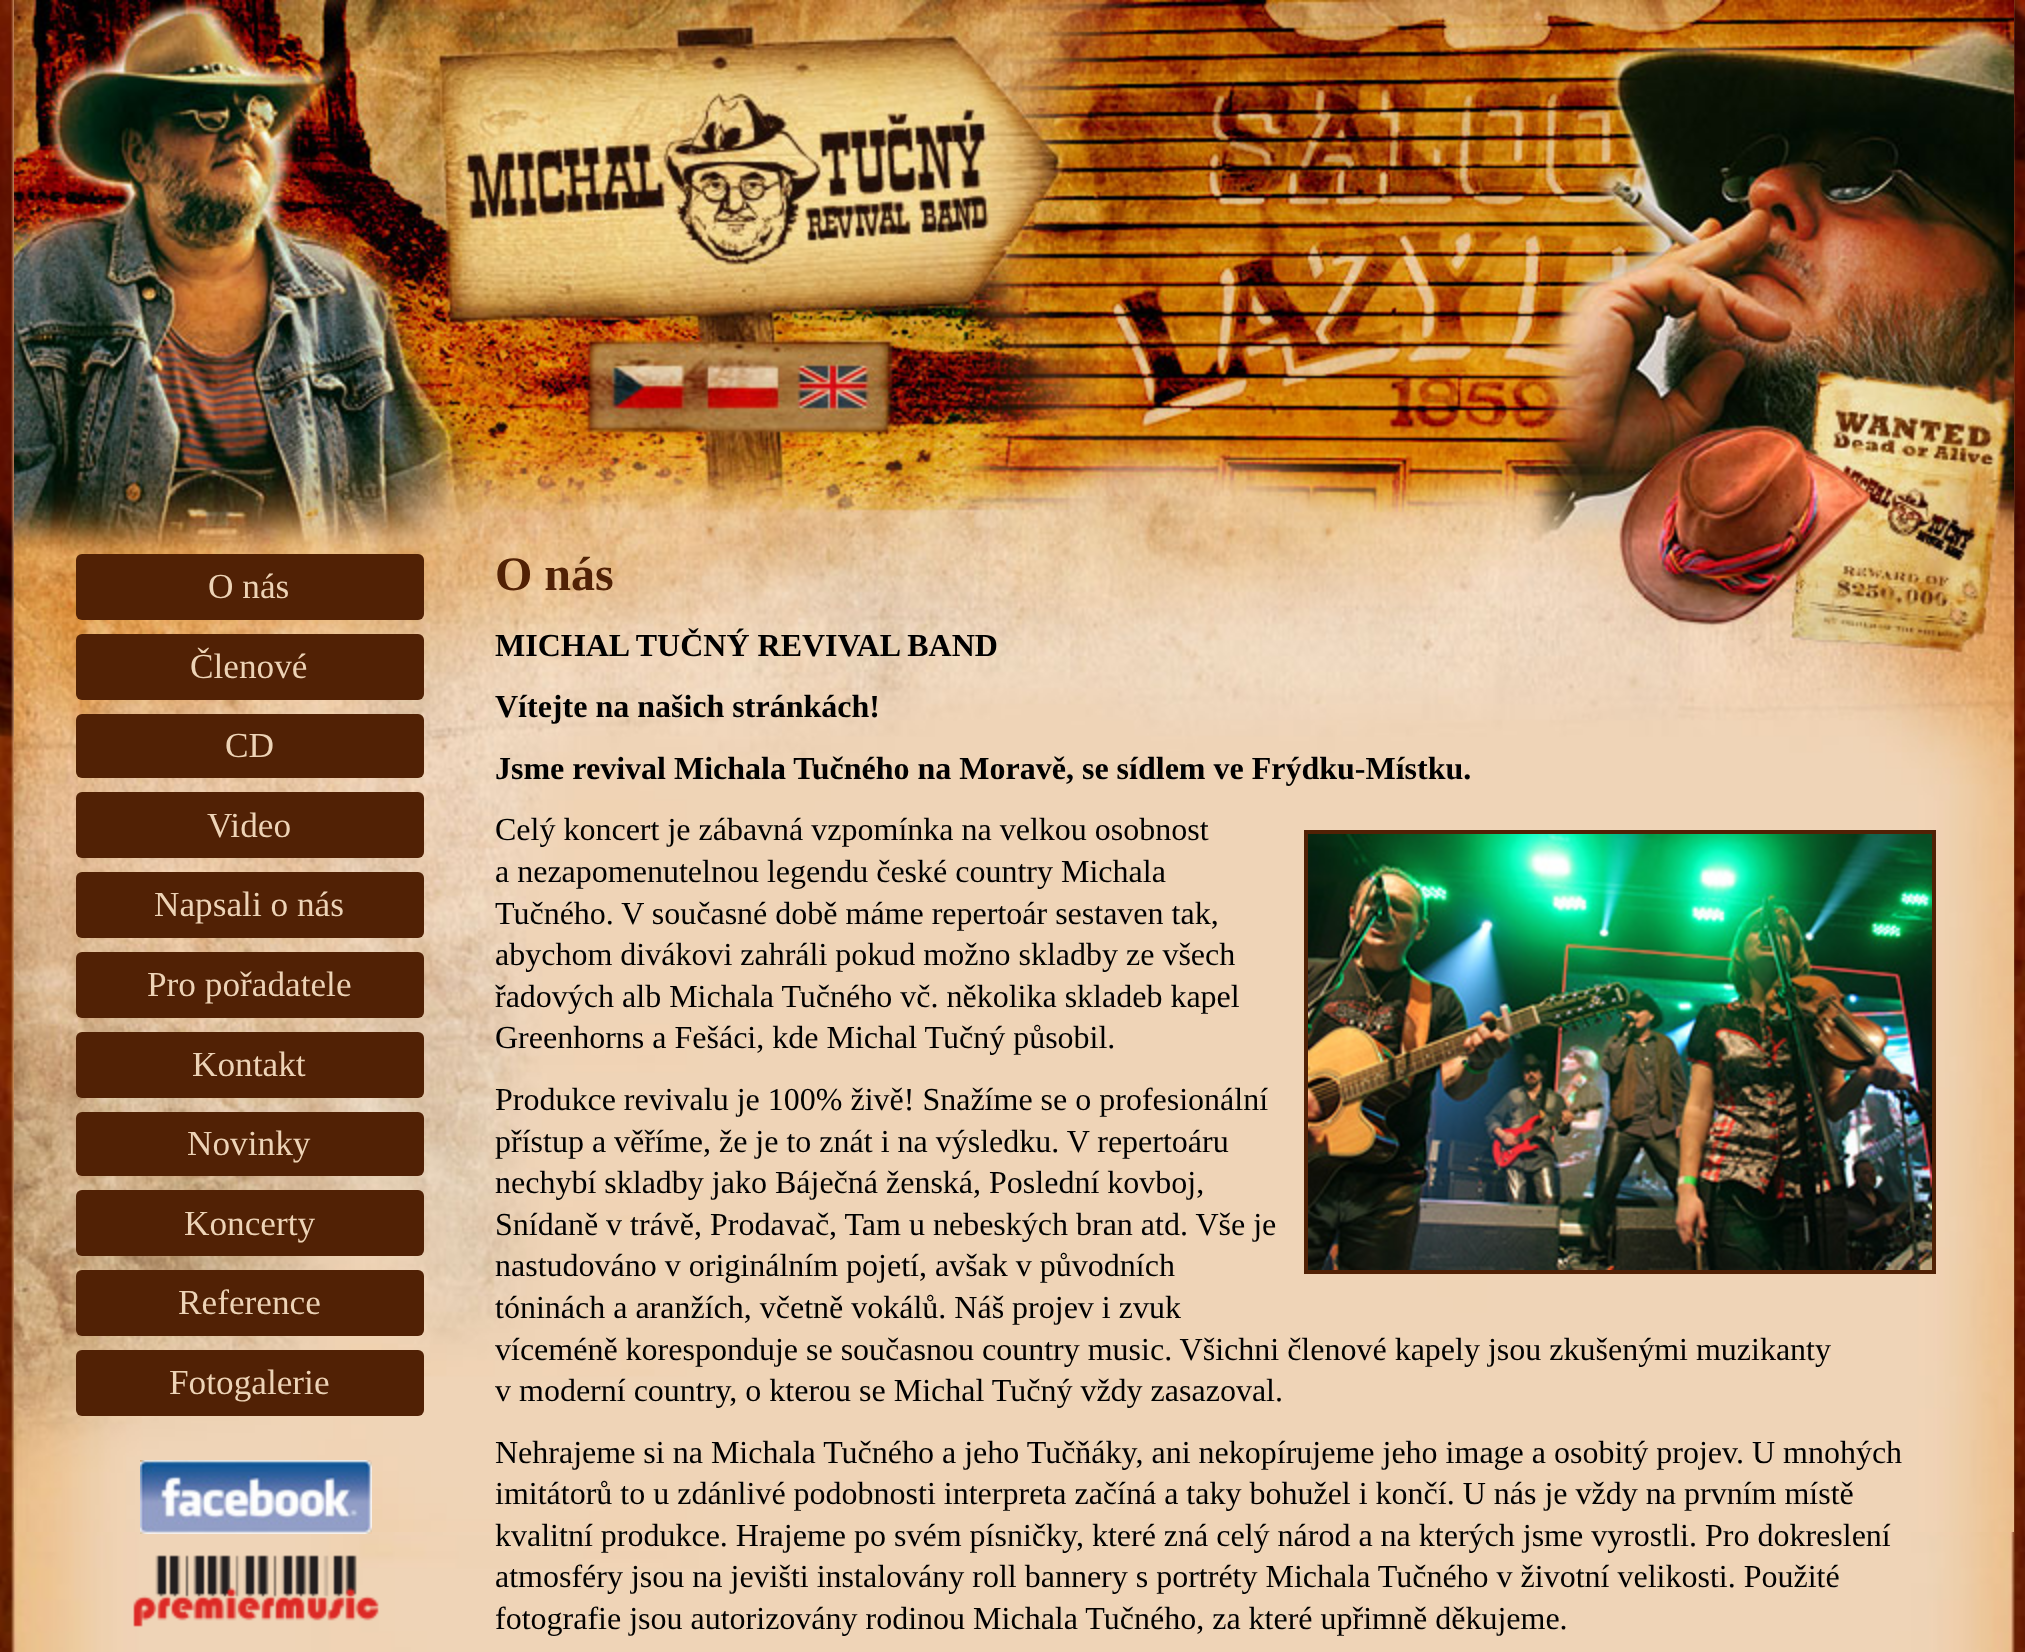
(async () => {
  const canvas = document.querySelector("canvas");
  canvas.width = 2025;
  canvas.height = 1652;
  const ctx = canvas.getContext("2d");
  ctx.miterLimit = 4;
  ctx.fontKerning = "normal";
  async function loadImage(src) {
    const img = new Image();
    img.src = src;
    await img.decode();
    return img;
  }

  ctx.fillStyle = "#ffffff";
  ctx.fillRect(0, 0, 2025, 1652);
  ctx.drawImage(await loadImage("img/1.png"), 0, 0, 2025, 1652);
  ctx.drawImage(await loadImage("img/2.png"), 14, 0, 2000, 1532);
  ctx.fillStyle = "#512105";
  ctx.beginPath();
  ctx.roundRect(76, 554, 348, 66, 6);
  ctx.fill();
  ctx.beginPath();
  ctx.roundRect(76, 634, 348, 66, 6);
  ctx.fill();
  ctx.beginPath();
  ctx.roundRect(76, 714, 348, 64, 6);
  ctx.fill();
  ctx.beginPath();
  ctx.roundRect(76, 792, 348, 66, 6);
  ctx.fill();
  ctx.beginPath();
  ctx.roundRect(76, 872, 348, 66, 6);
  ctx.fill();
  ctx.beginPath();
  ctx.roundRect(76, 952, 348, 66, 6);
  ctx.fill();
  ctx.beginPath();
  ctx.roundRect(76, 1032, 348, 66, 6);
  ctx.fill();
  ctx.beginPath();
  ctx.roundRect(76, 1112, 348, 64, 6);
  ctx.fill();
  ctx.beginPath();
  ctx.roundRect(76, 1190, 348, 66, 6);
  ctx.fill();
  ctx.beginPath();
  ctx.roundRect(76, 1270, 348, 66, 6);
  ctx.fill();
  ctx.beginPath();
  ctx.roundRect(76, 1350, 348, 66, 6);
  ctx.fill();
  ctx.drawImage(await loadImage("img/3.png"), 140, 1460, 232, 74);
  ctx.drawImage(await loadImage("img/4.png"), 133, 1555, 246, 72);
  ctx.strokeStyle = "#512105";
  ctx.lineWidth = 4;
  ctx.strokeRect(1306, 832, 628, 440);
  ctx.drawImage(await loadImage("img/5.png"), 1308, 834, 624, 436);
  ctx.font = "35.25px Liberation Serif";
  ctx.fillStyle = "#edd3b6";
  for (const [text, x, y] of [
    ["O nás", 208, 598],
    ["Členové", 190, 678],
    ["CD", 225, 757],
    ["Video", 207, 837],
    ["Napsali o nás", 154, 916],
    ["Pro pořadatele", 147, 996],
    ["Kontakt", 192, 1076],
    ["Novinky", 187, 1155],
    ["Koncerty", 184, 1235],
    ["Reference", 178, 1314],
    ["Fotogalerie", 169, 1394],
  ]) {
    ctx.fillText(text, x, y);
  }
  ctx.font = "bold 48px Liberation Serif";
  ctx.fillStyle = "#512105";
  ctx.fillText("O nás", 495, 590);
  ctx.font = "bold 32px Liberation Serif";
  ctx.fillStyle = "#000000";
  for (const [text, x, y] of [
    ["MICHAL TUČNÝ REVIVAL BAND", 495, 656],
    ["Vítejte na našich stránkách!", 495, 717],
    ["Jsme revival Michala Tučného na Moravě, se sídlem ve Frýdku-Místku.", 495, 779],
  ]) {
    ctx.fillText(text, x, y);
  }
  ctx.font = "32px Liberation Serif";
  for (const [text, x, y] of [
    ["Celý koncert je zábavná vzpomínka na velkou osobnost", 495, 840],
    ["a nezapomenutelnou legendu české country Michala", 495, 882],
    ["Tučného. V současné době máme repertoár sestaven tak,", 495, 924],
    ["abychom divákovi zahráli pokud možno skladby ze všech", 495, 965],
    ["řadových alb Michala Tučného vč. několika skladeb kapel", 495, 1007],
    ["Greenhorns a Fešáci, kde Michal Tučný působil.", 495, 1048],
    ["Produkce revivalu je 100% živě! Snažíme se o profesionální", 495, 1110],
    ["přístup a věříme, že je to znát i na výsledku. V repertoáru", 495, 1152],
    ["nechybí skladby jako Báječná ženská, Poslední kovboj,", 495, 1193],
    ["Snídaně v trávě, Prodavač, Tam u nebeských bran atd. Vše je", 495, 1235],
    ["nastudováno v originálním pojetí, avšak v původních", 495, 1276],
    ["tóninách a aranžích, včetně vokálů. Náš projev i zvuk", 495, 1318],
    ["víceméně koresponduje se současnou country music. Všichni členové kapely jsou zkušenými muzikanty", 495, 1360],
    ["v moderní country, o kterou se Michal Tučný vždy zasazoval.", 495, 1401],
    ["Nehrajeme si na Michala Tučného a jeho Tučňáky, ani nekopírujeme jeho image a osobitý projev. U mnohých", 495, 1463],
    ["imitátorů to u zdánlivé podobnosti interpreta začíná a taky bohužel i končí. U nás je vždy na prvním místě", 495, 1504],
    ["kvalitní produkce. Hrajeme po svém písničky, které zná celý národ a na kterých jsme vyrostli. Pro dokreslení", 495, 1546],
    ["atmosféry jsou na jevišti instalovány roll bannery s portréty Michala Tučného v životní velikosti. Použité", 495, 1587],
    ["fotografie jsou autorizovány rodinou Michala Tučného, za které upřimně děkujeme.", 495, 1629],
  ]) {
    ctx.fillText(text, x, y);
  }
})();
